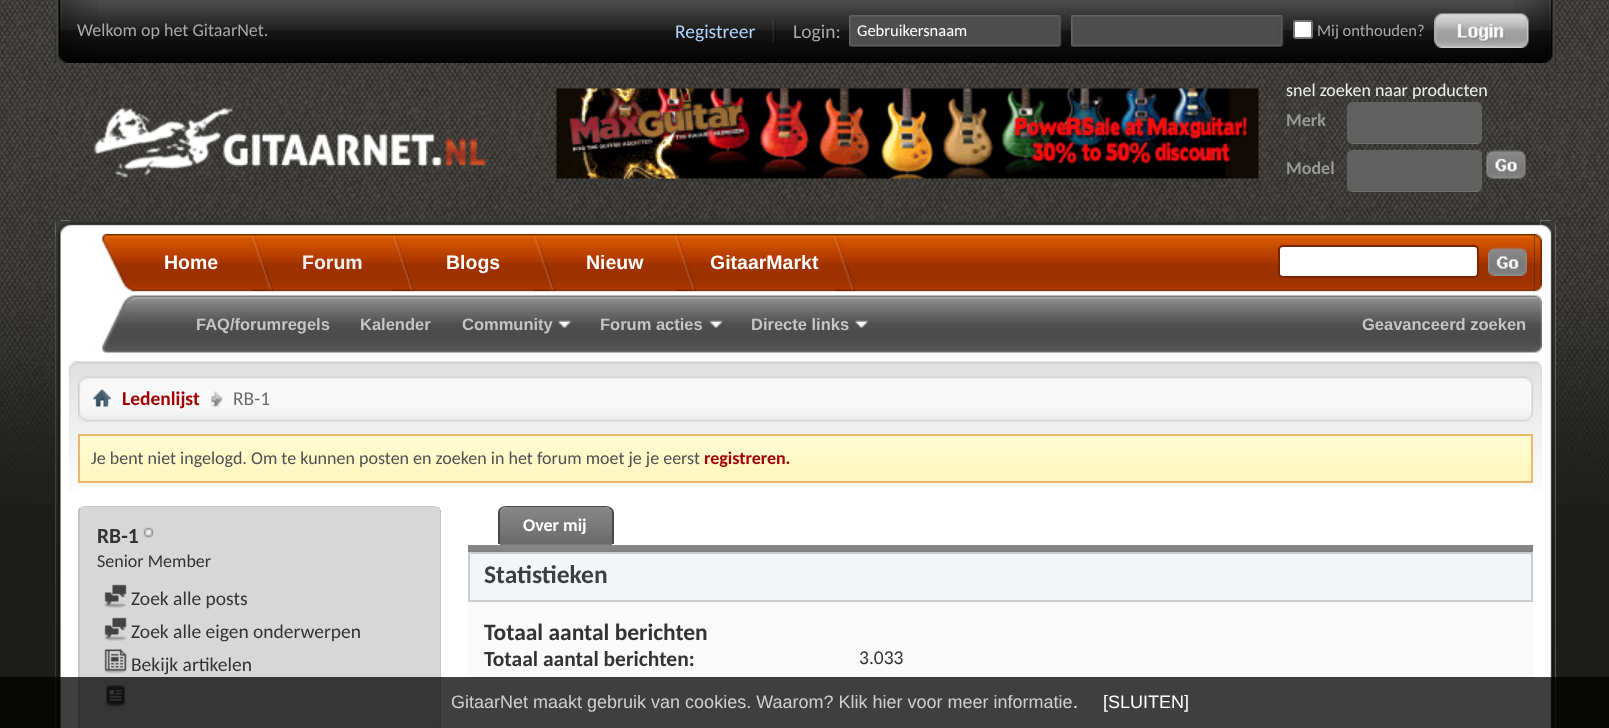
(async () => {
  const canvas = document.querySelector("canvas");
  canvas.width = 1609;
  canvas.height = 728;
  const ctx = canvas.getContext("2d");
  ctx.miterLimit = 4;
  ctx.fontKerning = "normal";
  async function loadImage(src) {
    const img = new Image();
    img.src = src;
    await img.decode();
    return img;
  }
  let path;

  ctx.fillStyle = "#1c1d1b";
  ctx.fillRect(0, 0, 1609, 728);
  ctx.drawImage(await loadImage("img/1.png"), 0, 0, 1609, 504);
  ctx.drawImage(await loadImage("img/2.png"), 55, 0, 1501, 63);
  ctx.drawImage(await loadImage("img/3.png"), 55, 0, 43, 63);
  ctx.drawImage(await loadImage("img/4.png"), 1514, 0, 42, 63);
  ctx.drawImage(await loadImage("img/5.png"), 772, 19, 4, 23);
  ctx.drawImage(await loadImage("img/6.png"), 849, 15, 213, 32);
  ctx.drawImage(await loadImage("img/7.png"), 1071, 15, 213, 32);
  ctx.fillStyle = "#ffffff";
  ctx.beginPath();
  ctx.roundRect(1294, 21, 18, 17, 2);
  ctx.fill();
  ctx.strokeStyle = "#767676";
  ctx.lineWidth = 2;
  ctx.stroke();
  ctx.drawImage(await loadImage("img/8.png"), 1434, 13, 95, 35);
  ctx.drawImage(await loadImage("img/9.png"), 94, 107, 393, 71);
  ctx.drawImage(await loadImage("img/10.png"), 556, 88, 703, 91);
  ctx.fillStyle = "#616161";
  ctx.beginPath();
  ctx.roundRect(1347, 102, 135, 42, 5);
  ctx.fill();
  ctx.drawImage(await loadImage("img/11.png"), 1351, 140, 131, 4);
  ctx.beginPath();
  ctx.roundRect(1347, 150, 135, 42, 5);
  ctx.fill();
  ctx.drawImage(await loadImage("img/12.png"), 1351, 188, 131, 4);
  ctx.drawImage(await loadImage("img/13.png"), 1486, 150, 40, 29);
  ctx.fillStyle = "#ffffff";
  ctx.fillRect(72, 221, 1484, 507);
  ctx.drawImage(await loadImage("img/14.png"), 55, 220, 1501, 16);
  ctx.drawImage(await loadImage("img/15.png"), 55, 220, 17, 508);
  ctx.drawImage(await loadImage("img/16.png"), 1540, 220, 16, 508);
  ctx.drawImage(await loadImage("img/17.png"), 55, 220, 17, 508);
  ctx.drawImage(await loadImage("img/18.png"), 1540, 220, 16, 508);
  ctx.drawImage(await loadImage("img/19.png"), 136, 291, 1398, 62);
  ctx.drawImage(await loadImage("img/20.png"), 87, 234, 49, 119);
  ctx.drawImage(await loadImage("img/21.png"), 1534, 234, 8, 119);
  ctx.fillStyle = "#2d2d2d";
  ctx.fillRect(1534, 234, 1, 57);
  ctx.drawImage(await loadImage("img/22.png"), 252, 234, 1283, 57);
  ctx.drawImage(await loadImage("img/23.png"), 252, 235, 21, 56);
  ctx.drawImage(await loadImage("img/24.png"), 132, 234, 120, 57);
  ctx.drawImage(await loadImage("img/23.png"), 534, 235, 21, 56);
  ctx.drawImage(await loadImage("img/24.png"), 414, 234, 120, 57);
  ctx.drawImage(await loadImage("img/23.png"), 675, 235, 21, 56);
  ctx.drawImage(await loadImage("img/24.png"), 555, 234, 120, 57);
  ctx.drawImage(await loadImage("img/23.png"), 834, 235, 21, 56);
  ctx.drawImage(await loadImage("img/25.png"), 696, 234, 138, 57);
  ctx.drawImage(await loadImage("img/26.png"), 393, 235, 21, 56);
  ctx.drawImage(await loadImage("img/24.png"), 273, 234, 120, 57);
  ctx.drawImage(await loadImage("img/27.png"), 557, 320, 15, 8);
  ctx.drawImage(await loadImage("img/28.png"), 709, 320, 14, 8);
  ctx.drawImage(await loadImage("img/27.png"), 854, 320, 15, 8);
  ctx.fillStyle = "#ffffff";
  ctx.beginPath();
  ctx.roundRect(1279, 246, 199, 31, 4);
  ctx.fill();
  ctx.strokeStyle = "#782500";
  ctx.stroke();
  ctx.drawImage(await loadImage("img/29.png"), 1488, 247, 39, 29);
  ctx.drawImage(await loadImage("img/30.png"), 69, 361, 1473, 126);
  ctx.drawImage(await loadImage("img/31.png"), 69, 361, 11, 130);
  ctx.drawImage(await loadImage("img/32.png"), 1533, 361, 9, 130);
  ctx.drawImage(await loadImage("img/33.png"), 78, 376, 1455, 46);
  ctx.drawImage(await loadImage("img/34.png"), 78, 376, 12, 46);
  ctx.drawImage(await loadImage("img/35.png"), 1523, 376, 10, 46);
  ctx.drawImage(await loadImage("img/36.png"), 93, 389, 18, 18);
  ctx.drawImage(await loadImage("img/37.png"), 211, 391, 11, 16);
  ctx.drawImage(await loadImage("img/38.png"), 80, 436, 1451, 45);
  ctx.strokeStyle = "#e6b868";
  ctx.strokeRect(79, 435, 1453, 47);
  ctx.fillStyle = "#d7d7d7";
  ctx.beginPath();
  ctx.roundRect(78, 506, 363, 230, 8);
  ctx.fill();
  ctx.drawImage(await loadImage("img/39.png"), 78, 508, 363, 6);
  ctx.beginPath();
  ctx.roundRect(79, 507, 361, 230, 7);
  ctx.strokeStyle = "#c6c6c5";
  ctx.stroke();
  ctx.fillRect(80, 507, 360, 215);
  ctx.drawImage(await loadImage("img/40.png"), 143, 527, 11, 11);
  ctx.drawImage(await loadImage("img/41.png"), 104, 584, 23, 24);
  ctx.drawImage(await loadImage("img/41.png"), 104, 617, 23, 24);
  ctx.drawImage(await loadImage("img/42.png"), 104, 649, 23, 25);
  ctx.drawImage(await loadImage("img/43.png"), 104, 685, 21, 22);
  ctx.fillStyle = "#6c6c6c";
  ctx.beginPath();
  ctx.roundRect(500, 507, 112, 38, [6, 6, 0, 0]);
  ctx.fill();
  ctx.drawImage(await loadImage("img/44.png"), 500, 507, 112, 30);
  ctx.fillStyle = "#484848";
  path = new Path2D("M506 506H606C610 506 614 509 614 513V544H498V513C498 509 501 506 506 506ZM506 507H606C609 507 612 510 612 513V544H500V513C500 510 502 507 506 507Z");
  ctx.fill(path, "evenodd");
  ctx.fillStyle = "#6c6c6c";
  ctx.fillRect(468, 545, 1065, 7);
  ctx.drawImage(await loadImage("img/45.png"), 468, 544, 1065, 8);
  ctx.fillStyle = "#f2f6f8";
  ctx.beginPath();
  ctx.rect(469, 553, 1063, 48);
  ctx.fill();
  ctx.strokeStyle = "#cccccc";
  ctx.stroke();
  ctx.fillStyle = "#fafafa";
  ctx.fillRect(468, 602, 1065, 126);
  ctx.fillStyle = "rgba(0, 0, 0, 0.75)";
  ctx.fillRect(0, 677, 1609, 51);
  ctx.font = "18px Carlito";
  ctx.fillStyle = "#a9a9a9";
  ctx.fillText("Welkom op het GitaarNet.", 77, 36);
  ctx.font = "19.5px Carlito";
  ctx.fillStyle = "#b1d5ff";
  ctx.fillText("Registreer", 675, 38);
  ctx.fillStyle = "#a9a9a9";
  ctx.fillText("Login:", 793, 38);
  ctx.font = "16.5px Carlito";
  ctx.fillStyle = "#ffffff";
  ctx.fillText("Gebruikersnaam", 857, 36);
  ctx.fillStyle = "#a9a9a9";
  ctx.fillText("Mij onthouden?", 1317, 36);
  ctx.font = "18px Carlito";
  ctx.fillStyle = "#efefef";
  ctx.fillText("snel zoeken naar producten", 1286, 96);
  ctx.font = "bold 18px Carlito";
  ctx.fillStyle = "#999999";
  ctx.fillText("Merk", 1286, 126);
  ctx.fillText("Model", 1286, 174);
  ctx.font = "bold 19.5px Liberation Sans";
  ctx.fillStyle = "#ffffff";
  for (const [text, x, y] of [
    ["Home", 164, 269],
    ["Blogs", 446, 269],
    ["Nieuw", 586, 269],
    ["GitaarMarkt", 710, 269],
  ]) {
    ctx.fillText(text, x, y);
  }
  ctx.fillStyle = "#efefef";
  ctx.fillText("Forum", 302, 269);
  ctx.font = "bold 16.5px Liberation Sans";
  ctx.fillStyle = "#c5c5c5";
  for (const [text, x, y] of [
    ["FAQ/forumregels", 196, 330],
    ["Kalender", 360, 330],
    ["Community", 462, 330],
    ["Forum acties", 600, 330],
    ["Directe links", 751, 330],
    ["Geavanceerd zoeken", 1362, 330],
  ]) {
    ctx.fillText(text, x, y);
  }
  ctx.font = "bold 19.5px Carlito";
  ctx.fillStyle = "#a20000";
  ctx.fillText("Ledenlijst", 122, 405);
  ctx.font = "19.5px Carlito";
  ctx.fillStyle = "#6a6a6a";
  ctx.fillText("RB-1", 233, 405);
  ctx.font = "18px Carlito";
  ctx.fillStyle = "#4d5153";
  ctx.fillText("Je bent niet ingelogd. Om te kunnen posten en zoeken in het forum moet je je eerst", 91, 464);
  ctx.font = "bold 18px Carlito";
  ctx.fillStyle = "#a20000";
  ctx.fillText("registreren.", 704, 464);
  ctx.font = "bold 21.5px Carlito";
  ctx.fillStyle = "#333333";
  ctx.fillText("RB-1", 97, 543);
  ctx.font = "18px Carlito";
  ctx.fillText("Senior Member", 97, 567);
  ctx.font = "19.5px Carlito";
  for (const [text, x, y] of [
    ["Zoek alle posts", 131, 605],
    ["Zoek alle eigen onderwerpen", 131, 638],
    ["Bekijk artikelen", 131, 671],
  ]) {
    ctx.fillText(text, x, y);
  }
  ctx.font = "bold 18px Carlito";
  ctx.fillStyle = "#ffffff";
  ctx.fillText("Over mij", 523, 531);
  ctx.font = "bold 25.5px Carlito";
  ctx.fillStyle = "#3e3e3e";
  ctx.fillText("Statistieken", 484, 583);
  ctx.font = "bold 23.5px Carlito";
  ctx.fillStyle = "#333333";
  ctx.fillText("Totaal aantal berichten", 484, 640);
  ctx.font = "bold 21.5px Carlito";
  ctx.fillText("Totaal aantal berichten:", 484, 666);
  ctx.font = "19.5px Carlito";
  ctx.fillText("3.033", 859, 664);
  ctx.font = "18px Liberation Sans";
  ctx.fillStyle = "#cfcfcf";
  ctx.fillText("GitaarNet maakt gebruik van cookies. Waarom? Klik hier voor meer informatie", 451, 708);
  ctx.fillStyle = "#ffffff";
  ctx.fillText(".", 1073, 708);
  ctx.fillText("[SLUITEN]", 1103, 708);
})();
